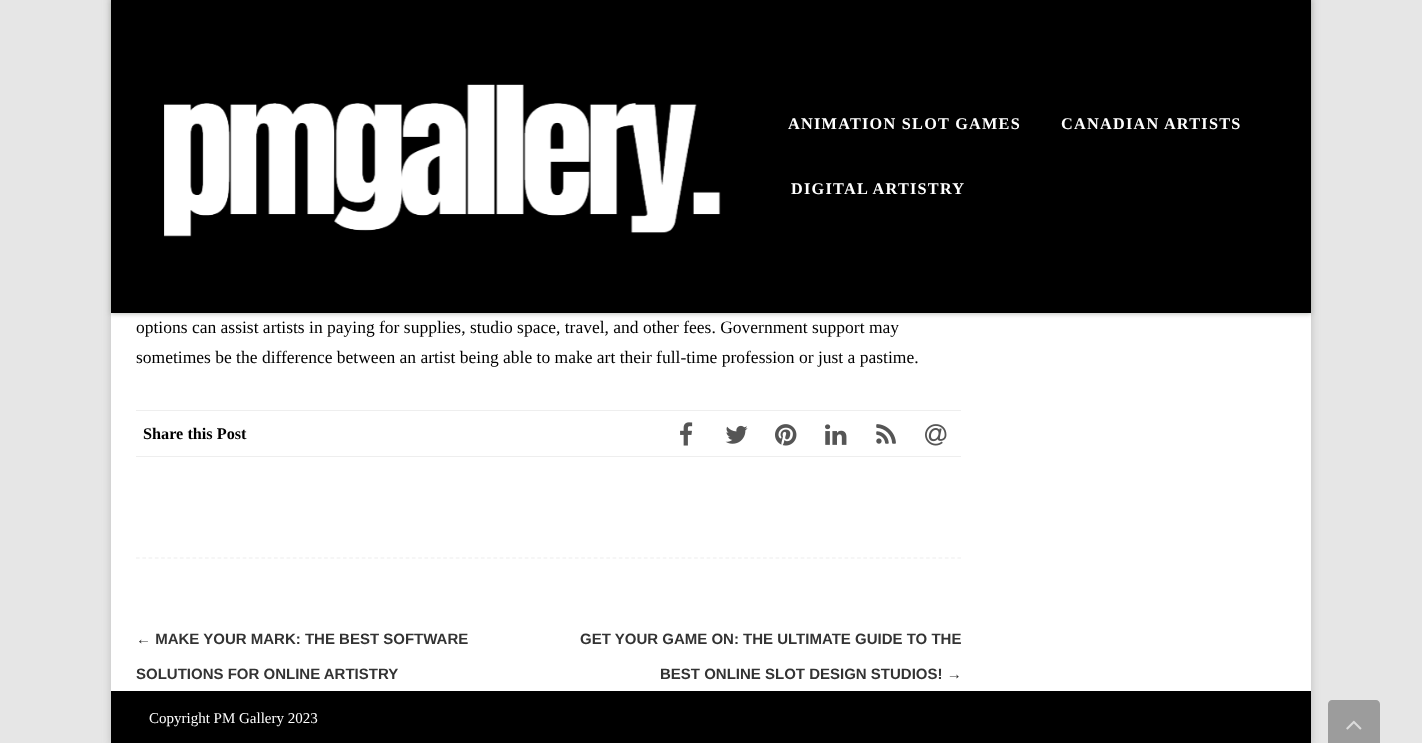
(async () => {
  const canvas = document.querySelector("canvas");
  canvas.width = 1422;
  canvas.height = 743;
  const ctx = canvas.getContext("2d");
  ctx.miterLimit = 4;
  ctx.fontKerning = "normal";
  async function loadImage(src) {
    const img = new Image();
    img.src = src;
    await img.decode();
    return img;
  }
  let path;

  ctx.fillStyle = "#e6e6e6";
  ctx.fillRect(0, 0, 1422, 743);
  ctx.fillStyle = "rgba(100, 100, 100, 0.3)";
  ctx.filter = "blur(4px)";
  ctx.beginPath();
  ctx.rect(111, -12, 1200, 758);
  ctx.fill();
  ctx.filter = "none";
  ctx.fillStyle = "#ffffff";
  ctx.fillRect(111, 313, 1200, 378);
  ctx.fillStyle = "#000000";
  ctx.fillRect(111, 0, 1200, 313);
  ctx.save();
  path = new Path2D("M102 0H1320V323H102ZM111 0H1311V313H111Z");
  ctx.clip(path, "evenodd");
  ctx.fillStyle = "rgba(167, 169, 164, 0.75)";
  ctx.filter = "blur(2.5px)";
  ctx.beginPath();
  ctx.rect(111, 1, 1200, 313);
  ctx.fill();
  ctx.filter = "none";
  ctx.restore();
  ctx.drawImage(await loadImage("img/1.png"), 164, 84, 557, 153);
  ctx.fillStyle = "#eeeeee";
  ctx.fillRect(136, 410, 825, 1);
  ctx.fillRect(136, 456, 825, 1);
  ctx.drawImage(await loadImage("img/2.png"), 680, 422, 13, 24);
  ctx.drawImage(await loadImage("img/3.png"), 725, 425, 23, 19);
  ctx.drawImage(await loadImage("img/4.png"), 775, 424, 22, 22);
  ctx.drawImage(await loadImage("img/5.png"), 825, 424, 22, 21);
  ctx.drawImage(await loadImage("img/6.png"), 876, 424, 20, 20);
  ctx.drawImage(await loadImage("img/7.png"), 925, 424, 22, 22);
  path = new Path2D("M136 558H961");
  ctx.strokeStyle = "#eeeeee";
  ctx.lineWidth = 1.2;
  ctx.setLineDash([3.75, 2.52]);
  ctx.stroke(path);
  ctx.fillStyle = "#000000";
  ctx.fillRect(111, 691, 1200, 52);
  ctx.fillStyle = "#9c9c9c";
  path = new Path2D("M1332 700H1376C1378 700 1380 702 1380 704V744H1328V704C1328 702 1330 700 1332 700Z");
  ctx.fill(path);
  ctx.drawImage(await loadImage("img/8.png"), 1346, 720, 16, 10);
  ctx.letterSpacing = "1.25px";
  ctx.font = "bold 16.25px Liberation Serif";
  ctx.fillStyle = "#ffffff";
  for (const [text, x, y] of [
    ["ANIMATION SLOT GAMES", 788, 129],
    ["CANADIAN ARTISTS", 1061, 129],
    ["DIGITAL ARTISTRY", 791, 194],
  ]) {
    ctx.fillText(text, x, y);
  }
  ctx.letterSpacing = "0px";
  ctx.font = "17.5px Liberation Serif";
  ctx.fillStyle = "#000000";
  ctx.fillText("options can assist artists in paying for supplies, studio space, travel, and other fees. Government support may", 136, 333);
  ctx.fillText("sometimes be the difference between an artist being able to make art their full-time profession or just a pastime.", 136, 363);
  ctx.font = "bold 16.25px Liberation Serif";
  ctx.fillText("Share this Post", 143, 439);
  ctx.font = "bold 15px Liberation Sans";
  ctx.fillStyle = "#333333";
  for (const [text, x, y] of [
    ["← MAKE YOUR MARK: THE BEST SOFTWARE", 136, 644],
    ["SOLUTIONS FOR ONLINE ARTISTRY", 136, 679],
    ["GET YOUR GAME ON: THE ULTIMATE GUIDE TO THE", 580, 644],
    ["BEST ONLINE SLOT DESIGN STUDIOS! →", 660, 679],
  ]) {
    ctx.fillText(text, x, y);
  }
  ctx.font = "15px Liberation Serif";
  ctx.fillStyle = "#ffffff";
  ctx.fillText("Copyright PM Gallery 2023", 149, 723);
})();
